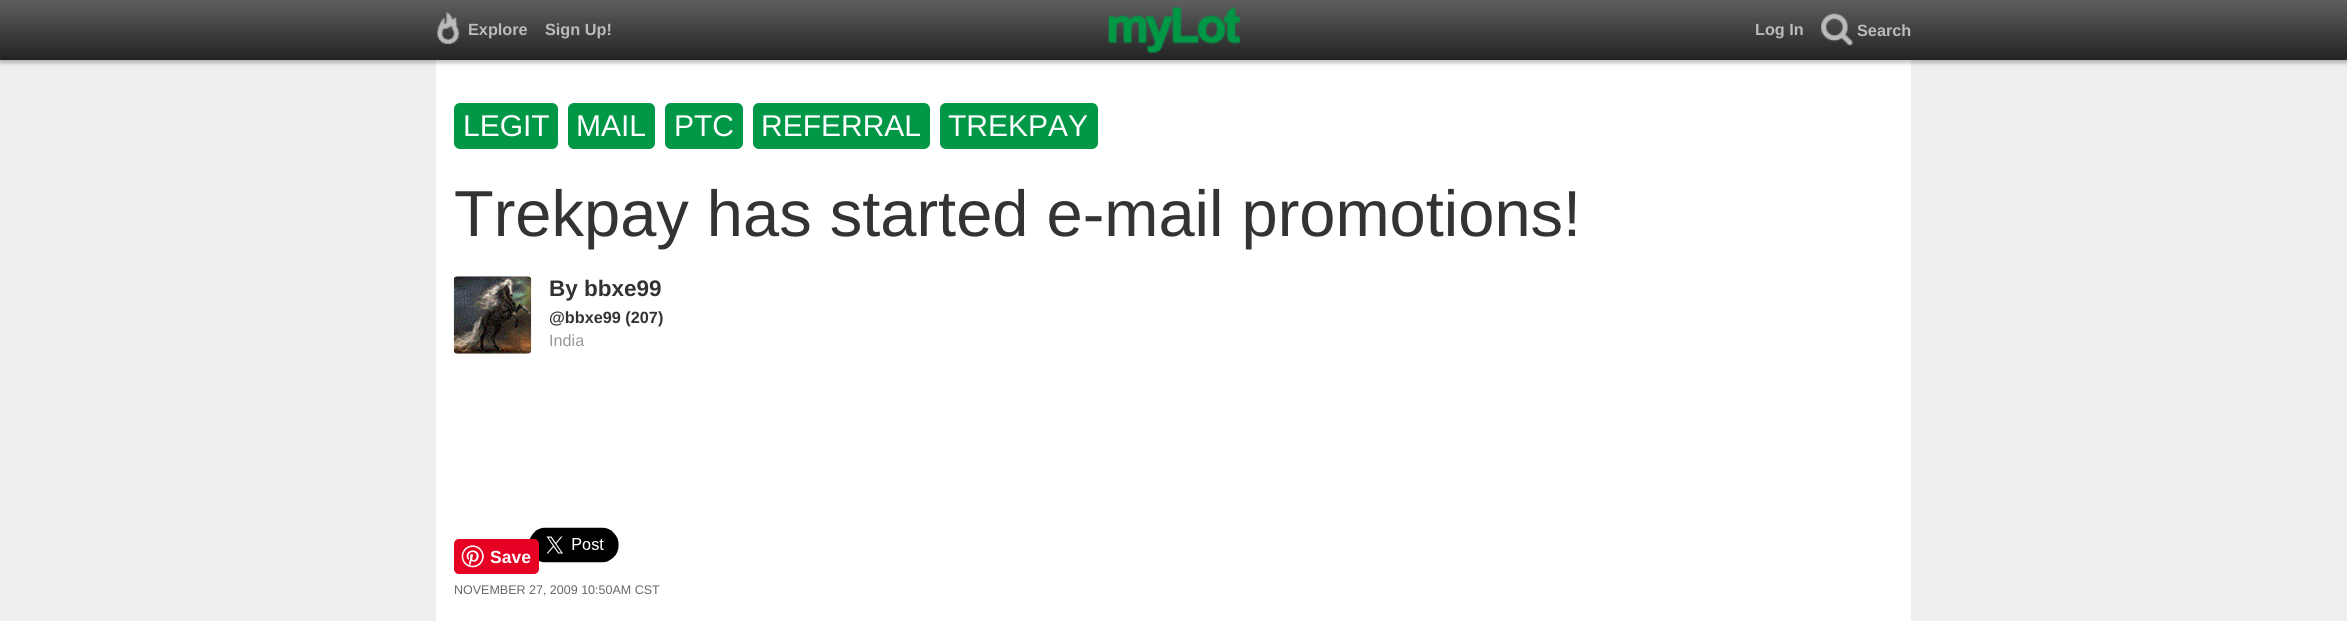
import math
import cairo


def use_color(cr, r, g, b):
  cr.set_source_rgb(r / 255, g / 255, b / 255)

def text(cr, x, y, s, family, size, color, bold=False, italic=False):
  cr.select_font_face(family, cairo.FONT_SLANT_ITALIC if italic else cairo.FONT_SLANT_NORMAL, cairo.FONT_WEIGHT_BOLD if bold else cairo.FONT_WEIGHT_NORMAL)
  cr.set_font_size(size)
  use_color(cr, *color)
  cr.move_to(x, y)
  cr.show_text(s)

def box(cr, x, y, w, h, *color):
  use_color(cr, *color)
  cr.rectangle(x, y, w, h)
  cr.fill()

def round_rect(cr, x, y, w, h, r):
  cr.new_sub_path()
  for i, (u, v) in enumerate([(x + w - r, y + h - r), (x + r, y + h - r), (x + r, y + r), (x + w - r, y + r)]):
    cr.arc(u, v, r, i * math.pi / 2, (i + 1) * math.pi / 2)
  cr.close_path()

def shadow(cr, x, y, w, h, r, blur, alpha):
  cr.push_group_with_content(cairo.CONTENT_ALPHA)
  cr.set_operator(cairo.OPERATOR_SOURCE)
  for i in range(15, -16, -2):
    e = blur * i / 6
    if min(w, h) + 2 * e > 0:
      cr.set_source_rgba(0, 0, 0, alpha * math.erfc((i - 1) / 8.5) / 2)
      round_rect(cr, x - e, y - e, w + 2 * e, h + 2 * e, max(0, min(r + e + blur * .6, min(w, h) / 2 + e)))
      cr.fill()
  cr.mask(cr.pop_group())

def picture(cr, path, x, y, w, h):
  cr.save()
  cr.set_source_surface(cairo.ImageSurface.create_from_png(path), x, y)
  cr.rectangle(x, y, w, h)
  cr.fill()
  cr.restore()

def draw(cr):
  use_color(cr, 238, 238, 238)
  cr.paint()
  box(cr, 436, 60, 1475, 561, 255, 255, 255)
  use_color(cr, 0, 0, 0)
  shadow(cr, 0, 3, 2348, 60, 0, 2, 0.25)
  gradient = cairo.LinearGradient(1174, 0, 1174, 60)
  gradient.add_color_stop_rgba(0, 0.369, 0.369, 0.369, 1)
  gradient.add_color_stop_rgba(1, 0.137, 0.137, 0.137, 1)
  cr.set_source(gradient)
  cr.rectangle(0, 0, 2347, 60)
  cr.fill()
  picture(cr, "img_01.png", 437, 12, 22, 32)
  picture(cr, "img_02.png", 1108, 7, 133, 46)
  picture(cr, "img_03.png", 1821, 13, 32, 33)
  use_color(cr, 0, 151, 70)
  round_rect(cr, 454, 103, 104, 46, 6)
  cr.fill()
  round_rect(cr, 568, 103, 87, 46, 6)
  cr.fill()
  round_rect(cr, 665, 103, 78, 46, 6)
  cr.fill()
  round_rect(cr, 753, 103, 177, 46, 6)
  cr.fill()
  round_rect(cr, 940, 103, 158, 46, 6)
  cr.fill()
  picture(cr, "img_04.png", 453, 276, 79, 78)
  picture(cr, "img_06.png", 529, 527, 90, 36)
  use_color(cr, 230, 0, 35)
  round_rect(cr, 454, 539, 85, 35, 5)
  cr.fill()
  picture(cr, "img_05.png", 461, 545, 23, 23)
  text(cr, 468, 35, "Explore", "Liberation Sans", 16.25, (187, 187, 187), bold=True)
  text(cr, 545, 35, "Sign Up!", "Liberation Sans", 16.25, (187, 187, 187), bold=True)
  text(cr, 1755, 35, "Log In", "Liberation Sans", 16.25, (187, 187, 187), bold=True)
  text(cr, 1857, 36, "Search", "Liberation Sans", 16.25, (187, 187, 187), bold=True)
  text(cr, 463, 136, "LEGIT", "Liberation Sans", 30, (255, 255, 255))
  text(cr, 576, 136, "MAIL", "Liberation Sans", 30, (255, 255, 255))
  text(cr, 674, 136, "PTC", "Liberation Sans", 30, (255, 255, 255))
  text(cr, 761, 136, "REFERRAL", "Liberation Sans", 30, (255, 255, 255))
  text(cr, 948, 136, "TREKPAY", "Liberation Sans", 30, (255, 255, 255))
  text(cr, 454, 236, "Trekpay has started e-mail promotions!", "Liberation Sans", 65, (51, 51, 51))
  text(cr, 549, 296, "By bbxe99", "Liberation Sans", 22.5, (51, 51, 51), bold=True)
  text(cr, 549, 323, "@bbxe99 (207)", "Liberation Sans", 16.25, (51, 51, 51), bold=True)
  text(cr, 549, 346, "India", "Liberation Sans", 16.25, (153, 153, 153))
  text(cr, 490, 563, "Save", "Liberation Sans", 17.5, (255, 255, 255), bold=True)
  text(cr, 454, 594, "NOVEMBER 27, 2009 10:50AM CST", "Liberation Sans", 12.5, (102, 102, 102))


surface = cairo.ImageSurface(cairo.FORMAT_RGB24, 2347, 621)
cr = cairo.Context(surface)
options = cairo.FontOptions()
options.set_hint_metrics(cairo.HINT_METRICS_OFF)
options.set_hint_style(cairo.HINT_STYLE_NONE)
cr.set_font_options(options)
cr.set_miter_limit(4)
draw(cr)
surface.write_to_png("out.png")
